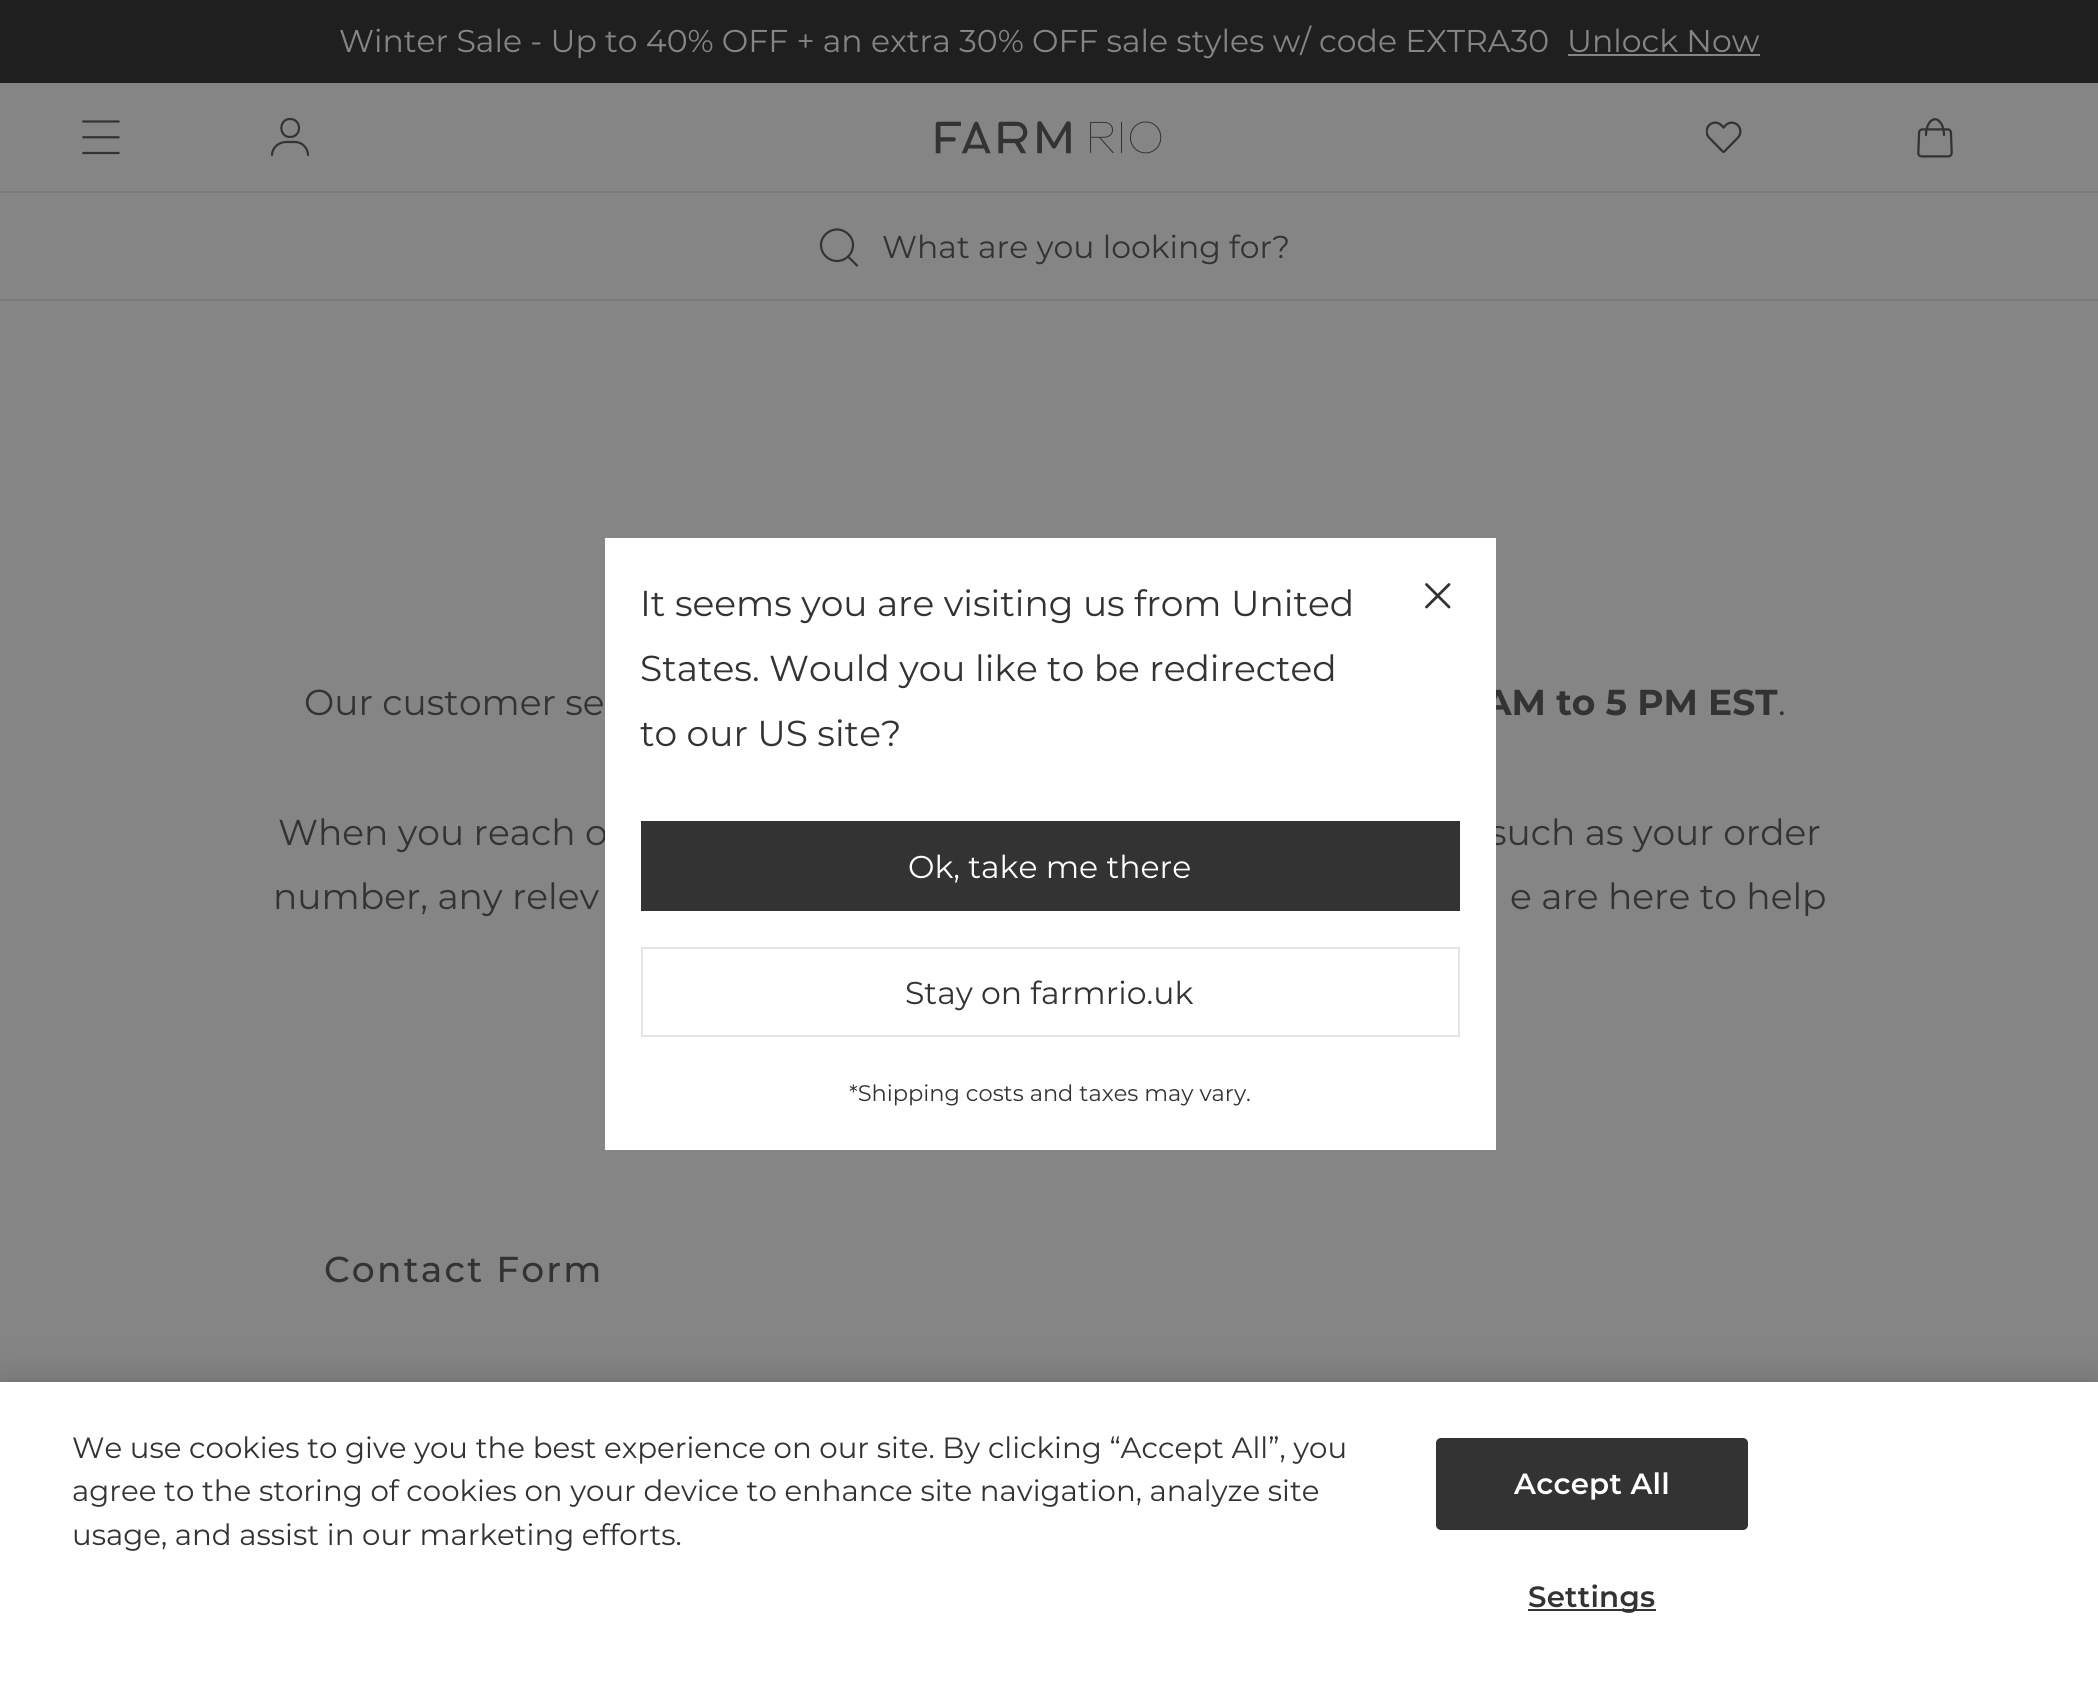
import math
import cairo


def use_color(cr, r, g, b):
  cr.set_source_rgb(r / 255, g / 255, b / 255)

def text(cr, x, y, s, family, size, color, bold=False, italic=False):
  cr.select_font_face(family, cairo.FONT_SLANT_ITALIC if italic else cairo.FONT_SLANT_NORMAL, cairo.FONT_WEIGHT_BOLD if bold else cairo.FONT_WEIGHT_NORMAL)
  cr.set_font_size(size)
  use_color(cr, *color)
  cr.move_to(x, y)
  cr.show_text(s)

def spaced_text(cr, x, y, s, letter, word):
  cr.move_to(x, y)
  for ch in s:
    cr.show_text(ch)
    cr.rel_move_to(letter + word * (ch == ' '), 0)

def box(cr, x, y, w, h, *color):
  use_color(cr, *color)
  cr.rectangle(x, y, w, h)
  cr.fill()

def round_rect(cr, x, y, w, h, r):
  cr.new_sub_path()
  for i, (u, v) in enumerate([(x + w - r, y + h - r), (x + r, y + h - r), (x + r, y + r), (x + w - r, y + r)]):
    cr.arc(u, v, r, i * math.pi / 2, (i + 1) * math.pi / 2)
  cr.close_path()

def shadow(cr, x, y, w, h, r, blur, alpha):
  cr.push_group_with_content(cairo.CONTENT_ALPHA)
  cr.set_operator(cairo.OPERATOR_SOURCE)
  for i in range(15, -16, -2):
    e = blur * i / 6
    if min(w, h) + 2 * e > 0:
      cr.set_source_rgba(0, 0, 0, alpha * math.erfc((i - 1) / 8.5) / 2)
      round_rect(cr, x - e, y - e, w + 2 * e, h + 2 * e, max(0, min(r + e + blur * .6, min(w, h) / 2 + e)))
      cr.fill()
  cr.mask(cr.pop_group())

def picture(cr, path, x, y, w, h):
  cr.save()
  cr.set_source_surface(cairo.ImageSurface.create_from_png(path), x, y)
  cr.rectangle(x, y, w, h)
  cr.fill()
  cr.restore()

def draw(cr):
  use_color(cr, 133, 133, 133)
  cr.paint()
  box(cr, 0, 0, 2098, 81, 31, 31, 31)
  box(cr, 0, 81, 2098, 2, 32, 32, 32)
  box(cr, 1568, 54, 192, 2, 133, 133, 133)
  box(cr, 0, 299, 2098, 2, 122, 122, 122)
  picture(cr, "img_01.png", 82, 120, 38, 35)
  cr.new_path()
  cr.move_to(272, 155)
  cr.curve_to(272, 148, 278.5, 142, 286, 142)
  cr.line_to(295, 142)
  cr.curve_to(302, 142, 308, 148, 308, 155)
  cr.move_to(290, 137)
  cr.curve_to(278.5, 137, 278.5, 119, 290, 119)
  cr.curve_to(302, 119, 302, 137, 290, 137)
  cr.close_path()
  use_color(cr, 51, 51, 51)
  cr.set_line_width(2.2)
  cr.set_line_cap(cairo.LINE_CAP_ROUND)
  cr.stroke()
  picture(cr, "img_02.png", 935, 121, 227, 33)
  picture(cr, "img_03.png", 1706, 121, 36, 32)
  picture(cr, "img_04.png", 1917, 118, 36, 40)
  box(cr, 0, 191, 2098, 2, 122, 122, 122)
  cr.new_path()
  cr.move_to(837, 261)
  cr.curve_to(845.5, 261, 853, 254, 853, 245)
  cr.curve_to(853, 236.5, 845.5, 229.5, 837, 229.5)
  cr.curve_to(828.5, 229.5, 821, 236.5, 821, 245)
  cr.curve_to(821, 254, 828.5, 261, 837, 261)
  cr.close_path()
  cr.move_to(848, 256.5)
  cr.line_to(857, 265.5)
  use_color(cr, 51, 51, 51)
  cr.stroke()
  use_color(cr, 0, 0, 0)
  shadow(cr, 0, 1382, 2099, 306, 0, 20, 0.2)
  box(cr, 0, 1382, 2098, 304, 255, 255, 255)
  use_color(cr, 51, 51, 51)
  round_rect(cr, 1437, 1439, 310, 90, 4)
  cr.fill_preserve()
  cr.set_line_width(2)
  cr.set_line_cap(cairo.LINE_CAP_BUTT)
  cr.stroke()
  box(cr, 1528, 1609, 128, 2, 51, 51, 51)
  text(cr, 339, 52, "Winter Sale - Up to 40% OFF + an extra 30% OFF sale styles w/ code EXTRA30", "Montserrat", 31.5, (133, 133, 133))
  text(cr, 1567, 52, "Unlock Now", "Montserrat", 31.5, (133, 133, 133))
  text(cr, 882, 258, "What are you looking for?", "Montserrat", 31.5, (51, 51, 51))
  text(cr, 304, 715, "Our customer se", "Montserrat", 36, (51, 51, 51))
  text(cr, 1484, 715, "AM to 5 PM EST", "Montserrat", 36, (51, 51, 51), bold=True)
  text(cr, 1778, 715, ".", "Montserrat", 36, (51, 51, 51))
  text(cr, 278, 845, "When you reach o", "Montserrat", 36, (51, 51, 51))
  text(cr, 1489, 845, "such as your order", "Montserrat", 36, (51, 51, 51))
  box(cr, 605, 538, 891, 612, 255, 255, 255)
  cr.new_path()
  cr.move_to(1449, 584.5)
  cr.line_to(1426.5, 607)
  cr.move_to(1449, 607)
  cr.line_to(1426.5, 584.5)
  use_color(cr, 51, 51, 51)
  cr.set_line_width(2.8)
  cr.set_line_cap(cairo.LINE_CAP_ROUND)
  cr.set_line_join(cairo.LINE_JOIN_ROUND)
  cr.stroke()
  text(cr, 849, 1101, "*Shipping costs and taxes may vary.", "Montserrat", 22.5, (51, 51, 51))
  box(cr, 641, 821, 819, 90, 51, 51, 51)
  text(cr, 908, 878, "Ok, take me there", "Montserrat", 31.5, (255, 255, 255))
  cr.rectangle(642, 948, 817, 88)
  use_color(cr, 229, 229, 229)
  cr.set_line_width(2)
  cr.set_line_cap(cairo.LINE_CAP_BUTT)
  cr.set_line_join(cairo.LINE_JOIN_MITER)
  cr.stroke()
  text(cr, 905, 1004, "Stay on farmrio.uk", "Montserrat", 31.5, (51, 51, 51))
  text(cr, 640, 746, "to our US site?", "Montserrat", 36, (51, 51, 51))
  text(cr, 640, 681, "States. Would you like to be redirected", "Montserrat", 36, (51, 51, 51))
  text(cr, 640, 616, "It seems you are visiting us from United", "Montserrat", 36, (51, 51, 51))
  text(cr, 273, 909, "number, any relev", "Montserrat", 36, (51, 51, 51))
  text(cr, 1510, 909, "e are here to help", "Montserrat", 36, (51, 51, 51))
  cr.select_font_face("Montserrat Medium")
  spaced_text(cr, 324, 1282, "Contact Form", 2.2, 0)
  text(cr, 72, 1458, "We use cookies to give you the best experience on our site. By clicking “Accept All”, you", "Montserrat", 29.25, (51, 51, 51))
  text(cr, 72, 1501, "agree to the storing of cookies on your device to enhance site navigation, analyze site", "Montserrat", 29.25, (51, 51, 51))
  text(cr, 72, 1545, "usage, and assist in our marketing efforts.", "Montserrat", 29.25, (51, 51, 51))
  cr.select_font_face("Montserrat SemiBold")
  use_color(cr, 255, 255, 255)
  spaced_text(cr, 1514, 1494, "Accept All", 0.25, 0)
  use_color(cr, 51, 51, 51)
  spaced_text(cr, 1528, 1607, "Settings", 0.25, 0)


surface = cairo.ImageSurface(cairo.FORMAT_RGB24, 2098, 1686)
cr = cairo.Context(surface)
options = cairo.FontOptions()
options.set_hint_metrics(cairo.HINT_METRICS_OFF)
options.set_hint_style(cairo.HINT_STYLE_NONE)
cr.set_font_options(options)
cr.set_miter_limit(4)
draw(cr)
surface.write_to_png("out.png")
